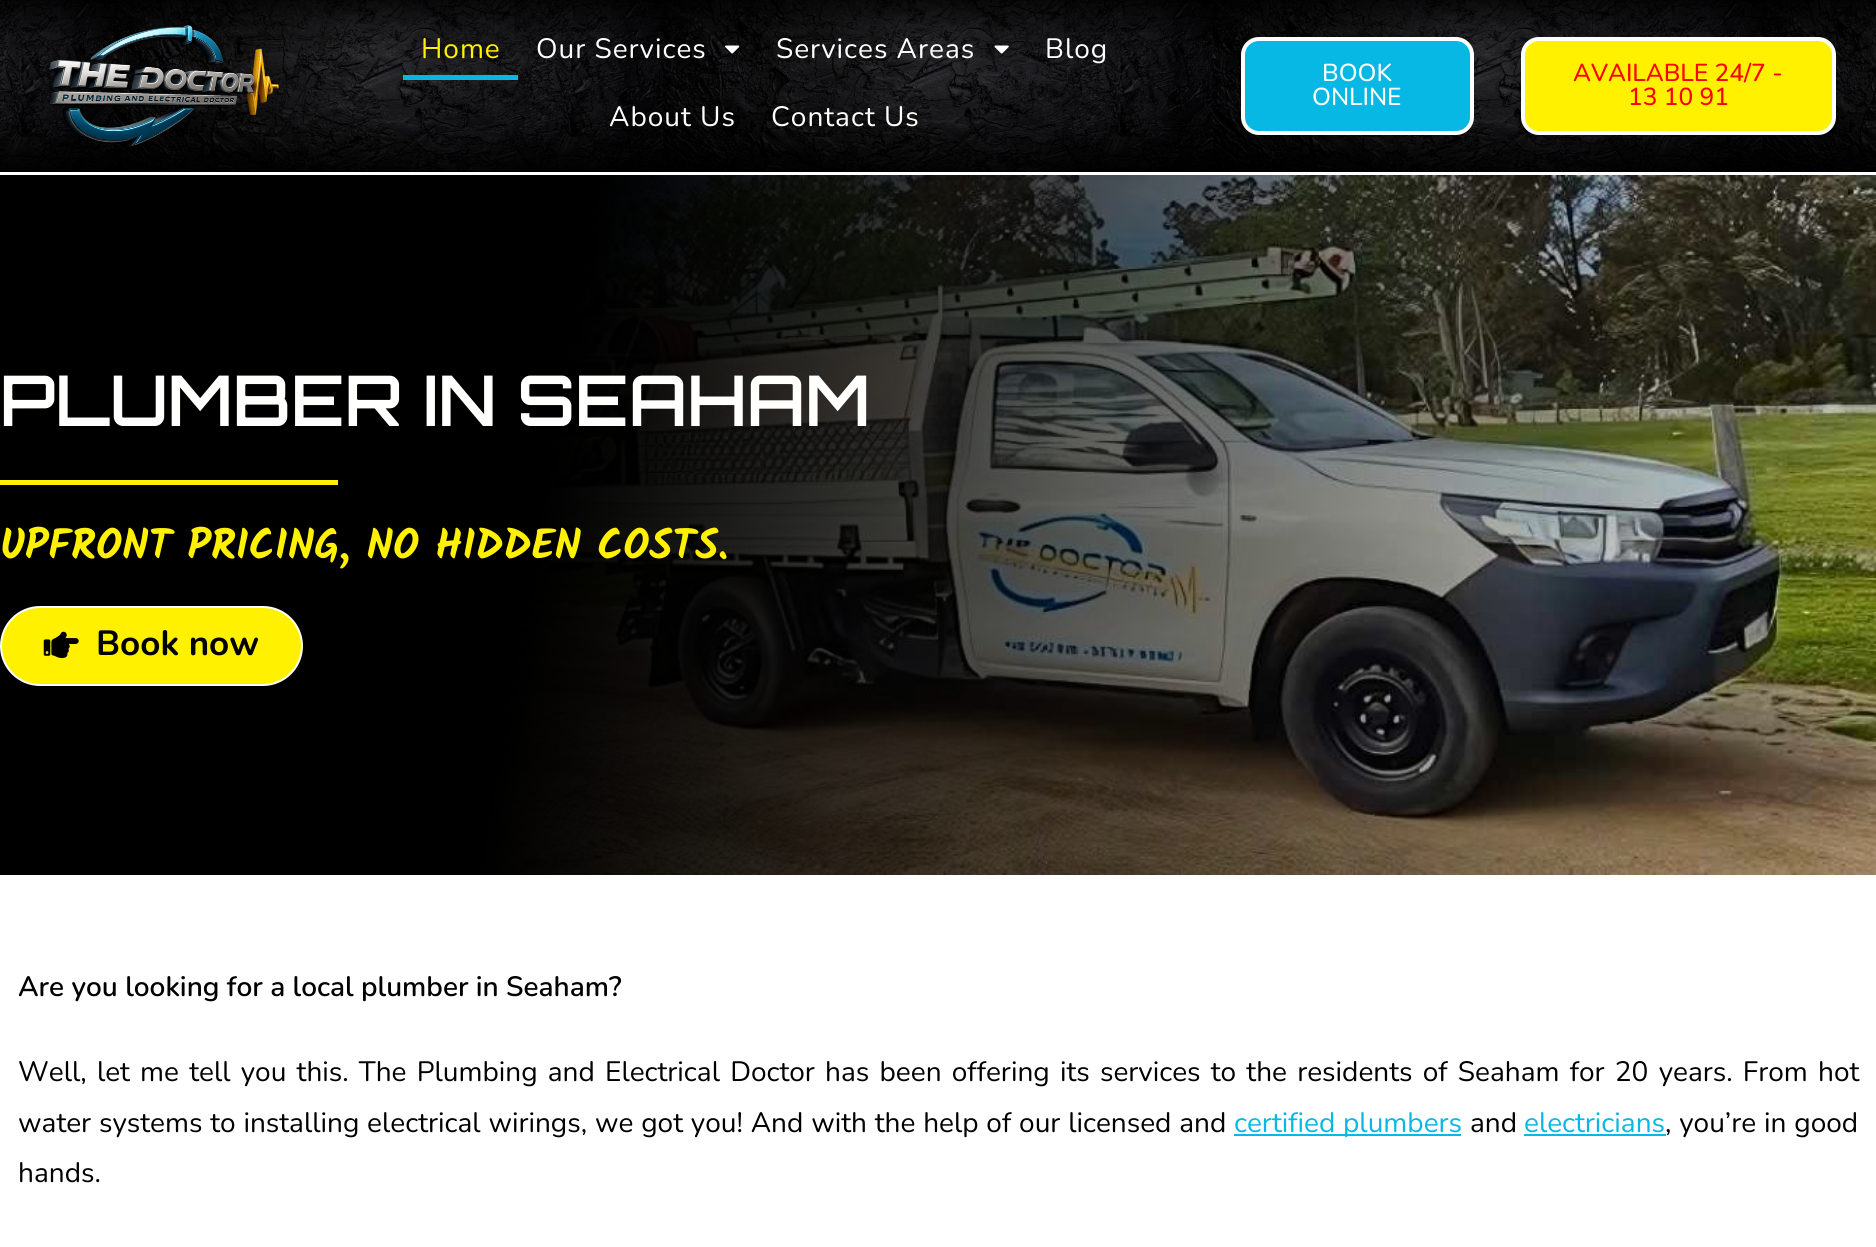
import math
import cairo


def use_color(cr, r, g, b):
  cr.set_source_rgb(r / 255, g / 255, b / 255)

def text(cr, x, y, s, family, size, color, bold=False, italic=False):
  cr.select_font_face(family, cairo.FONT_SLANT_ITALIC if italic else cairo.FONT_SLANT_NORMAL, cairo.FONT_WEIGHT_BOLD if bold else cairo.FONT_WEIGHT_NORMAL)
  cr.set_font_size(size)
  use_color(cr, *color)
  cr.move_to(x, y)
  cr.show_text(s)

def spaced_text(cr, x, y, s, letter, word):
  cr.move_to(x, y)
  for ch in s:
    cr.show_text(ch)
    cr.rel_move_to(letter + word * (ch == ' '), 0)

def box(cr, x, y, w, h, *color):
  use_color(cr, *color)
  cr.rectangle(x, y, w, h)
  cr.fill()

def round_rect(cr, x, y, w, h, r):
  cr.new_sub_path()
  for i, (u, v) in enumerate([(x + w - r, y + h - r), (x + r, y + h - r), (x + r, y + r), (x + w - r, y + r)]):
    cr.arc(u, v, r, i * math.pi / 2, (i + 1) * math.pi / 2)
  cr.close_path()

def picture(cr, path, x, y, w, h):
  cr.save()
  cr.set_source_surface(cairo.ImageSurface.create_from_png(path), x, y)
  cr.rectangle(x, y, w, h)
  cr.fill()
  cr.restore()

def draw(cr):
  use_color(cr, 255, 255, 255)
  cr.paint()
  box(cr, 0, 171, 1876, 1, 0, 0, 0)
  picture(cr, "img_01.png", 0, 0, 1876, 172)
  picture(cr, "img_02.png", 49, 25, 230, 121)
  box(cr, 403, 75, 115, 5, 7, 184, 229)
  picture(cr, "img_03.png", 725, 45, 15, 9)
  picture(cr, "img_04.png", 994, 45, 15, 9)
  round_rect(cr, 1243, 39, 229, 94, 16)
  cr.fill_preserve()
  use_color(cr, 255, 255, 255)
  cr.set_line_width(4)
  cr.stroke()
  use_color(cr, 255, 241, 0)
  round_rect(cr, 1523, 39, 311, 94, 16)
  cr.fill_preserve()
  use_color(cr, 255, 255, 255)
  cr.stroke()
  picture(cr, "img_05.png", 0, 175, 1876, 700)
  box(cr, 0, 480, 338, 5, 255, 241, 0)
  round_rect(cr, 1, 607, 301, 78, 39)
  cr.fill_preserve()
  use_color(cr, 255, 255, 255)
  cr.set_line_width(2)
  cr.stroke()
  picture(cr, "img_06.png", 43, 631, 36, 27)
  box(cr, 1234, 1134, 227, 2, 7, 184, 229)
  box(cr, 1524, 1134, 142, 2, 7, 184, 229)
  cr.select_font_face("Nunito")
  cr.set_font_size(28)
  use_color(cr, 255, 241, 0)
  spaced_text(cr, 421, 58, "Home", 1, 0)
  use_color(cr, 255, 255, 254)
  spaced_text(cr, 536, 58, "Our Services", 1, 0)
  spaced_text(cr, 776, 58, "Services Areas", 1, 0)
  spaced_text(cr, 1045, 58, "Blog", 1, 0)
  spaced_text(cr, 609, 126, "About Us", 1, 0)
  spaced_text(cr, 771, 126, "Contact Us", 1, 0)
  text(cr, 1322, 81, "BOOK", "Nunito Medium", 24.5, (255, 255, 254))
  text(cr, 1312, 105, "ONLINE", "Nunito Medium", 24.5, (255, 255, 254))
  text(cr, 1573, 81, "AVAILABLE 24/7 -", "Nunito Medium", 24.5, (255, 0, 0))
  text(cr, 1628, 105, "13 10 91", "Nunito Medium", 24.5, (255, 0, 0))
  text(cr, 0, 426, "PLUMBER IN SEAHAM", "Orbitron SemiBold", 70, (255, 255, 254))
  text(cr, 0, 559, "UPFRONT PRICING, NO HIDDEN COSTS.", "Kalam", 42, (255, 241, 0), bold=True)
  text(cr, 96, 655, "Book now", "Nunito", 35, (0, 0, 0), bold=True)
  text(cr, 18, 996, "Are you looking for a local plumber in Seaham?", "Nunito SemiBold", 28, (0, 0, 0))
  cr.select_font_face("Nunito")
  spaced_text(cr, 18, 1081, "Well, let me tell you this. The Plumbing and Electrical Doctor has been offering its services to the residents of Seaham for 20 years. From hot", 0, 3)
  spaced_text(cr, 18, 1132, "water systems to installing electrical wirings, we got you! And with the help of our licensed and", 0, 0.6)
  use_color(cr, 7, 184, 229)
  spaced_text(cr, 1234, 1132, "certified plumbers", 0, 0.6)
  text(cr, 1470, 1132, "and", "Nunito", 28, (0, 0, 0))
  text(cr, 1524, 1132, "electricians", "Nunito", 28, (7, 184, 229))
  use_color(cr, 0, 0, 0)
  spaced_text(cr, 1665, 1132, ", you’re in good", 0, 0.6)
  text(cr, 18, 1182, "hands.", "Nunito", 28, (0, 0, 0))


surface = cairo.ImageSurface(cairo.FORMAT_RGB24, 1876, 1247)
cr = cairo.Context(surface)
options = cairo.FontOptions()
options.set_hint_metrics(cairo.HINT_METRICS_OFF)
options.set_hint_style(cairo.HINT_STYLE_NONE)
cr.set_font_options(options)
cr.set_miter_limit(4)
draw(cr)
surface.write_to_png("out.png")
